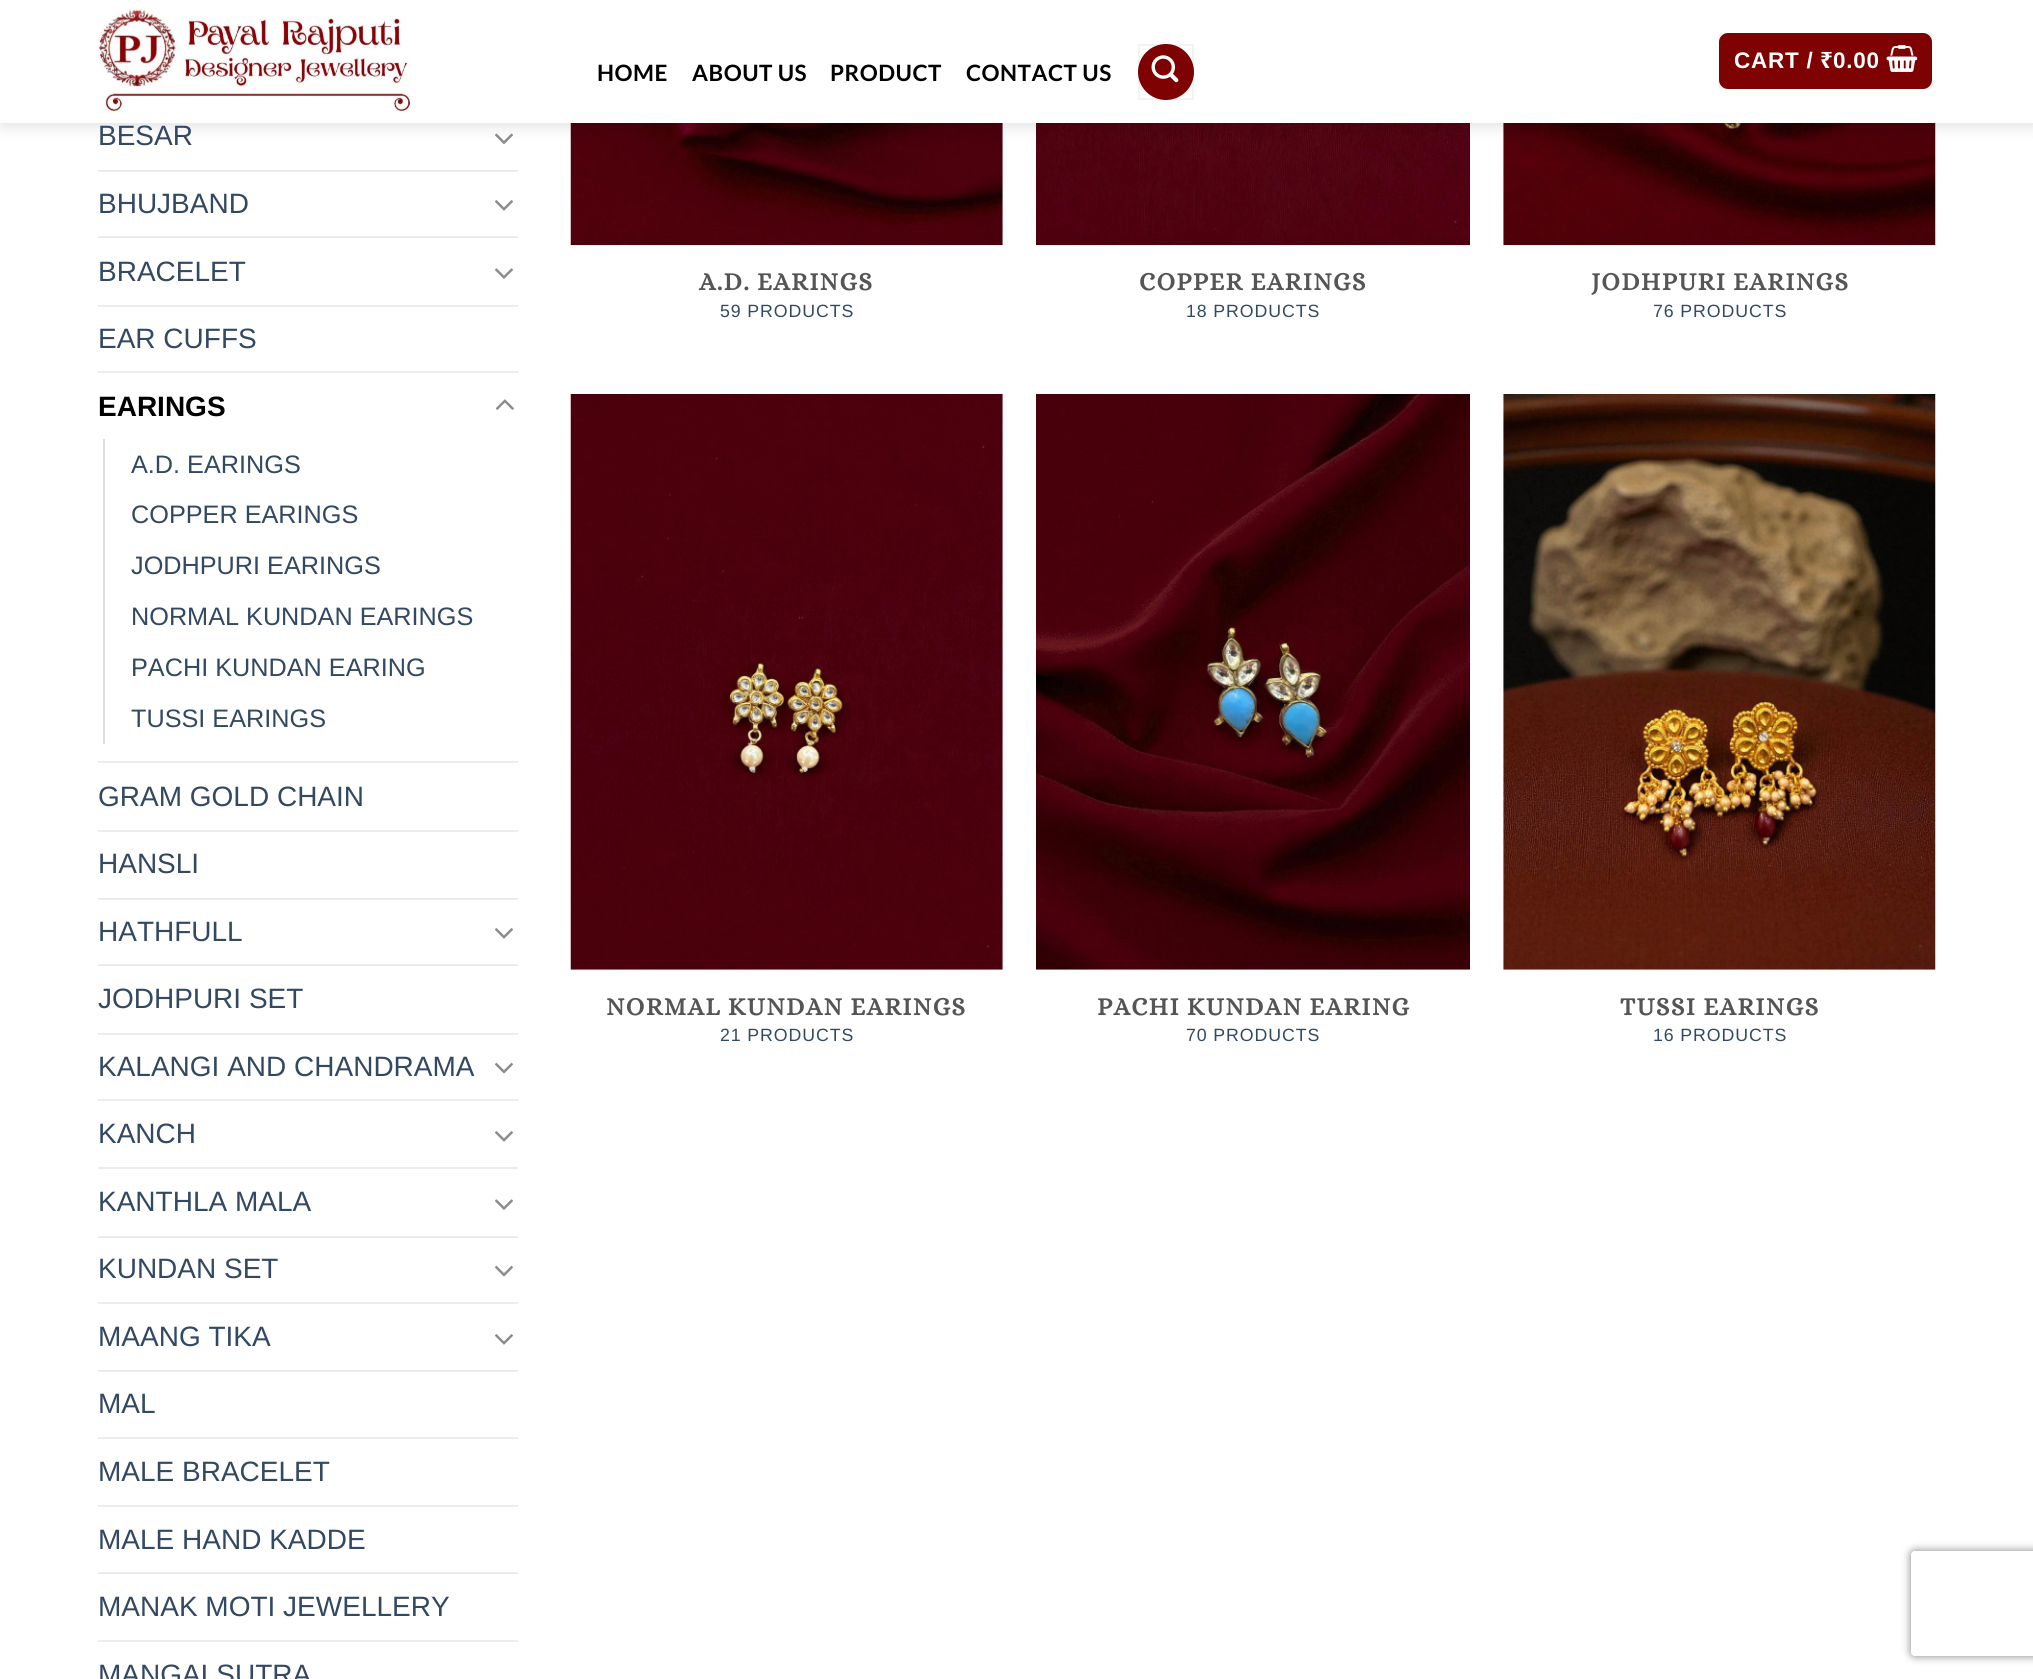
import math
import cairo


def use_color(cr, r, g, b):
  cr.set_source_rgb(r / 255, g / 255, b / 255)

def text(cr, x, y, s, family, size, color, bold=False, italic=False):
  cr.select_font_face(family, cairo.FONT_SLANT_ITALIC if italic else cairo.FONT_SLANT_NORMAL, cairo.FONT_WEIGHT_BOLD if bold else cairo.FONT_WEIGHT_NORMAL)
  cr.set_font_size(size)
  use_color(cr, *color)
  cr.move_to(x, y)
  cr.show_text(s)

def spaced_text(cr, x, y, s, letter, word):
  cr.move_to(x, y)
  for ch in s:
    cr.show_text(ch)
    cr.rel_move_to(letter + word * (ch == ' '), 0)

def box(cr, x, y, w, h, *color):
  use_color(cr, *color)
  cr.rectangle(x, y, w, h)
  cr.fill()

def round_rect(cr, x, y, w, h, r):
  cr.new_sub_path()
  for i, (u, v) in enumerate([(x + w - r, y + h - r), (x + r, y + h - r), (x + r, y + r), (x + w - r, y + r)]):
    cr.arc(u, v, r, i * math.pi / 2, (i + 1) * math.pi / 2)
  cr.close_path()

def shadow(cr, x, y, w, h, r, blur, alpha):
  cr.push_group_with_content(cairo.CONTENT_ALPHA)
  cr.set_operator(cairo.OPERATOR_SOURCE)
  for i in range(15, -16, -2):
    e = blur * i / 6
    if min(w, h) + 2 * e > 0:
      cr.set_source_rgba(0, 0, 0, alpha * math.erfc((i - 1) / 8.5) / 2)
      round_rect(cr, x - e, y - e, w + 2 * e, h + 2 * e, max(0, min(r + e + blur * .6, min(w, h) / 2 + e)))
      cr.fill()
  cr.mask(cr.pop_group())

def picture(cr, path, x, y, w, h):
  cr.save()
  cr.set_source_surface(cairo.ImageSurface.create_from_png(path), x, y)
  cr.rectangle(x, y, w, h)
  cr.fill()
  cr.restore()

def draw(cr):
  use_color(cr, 255, 255, 255)
  cr.paint()
  picture(cr, "img_04.png", 495, 133, 18, 11)
  picture(cr, "img_09.png", 570, 123, 433, 123)
  picture(cr, "img_10.png", 1036, 123, 434, 123)
  picture(cr, "img_11.png", 1503, 123, 433, 123)
  use_color(cr, 0, 0, 0)
  shadow(cr, 2, 2, 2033, 122, 0, 9, 0.15)
  box(cr, 0, 0, 2033, 123, 255, 255, 255)
  picture(cr, "img_01.png", 98, 9, 313, 103)
  use_color(cr, 127, 2, 2)
  round_rect(cr, 1719, 33, 213, 56, 9)
  cr.fill()
  cr.rectangle(1720, 34, 211, 54)
  cr.set_source_rgba(0, 0, 0, 0.05)
  cr.stroke()
  picture(cr, "img_02.png", 1886, 45, 32, 27)
  use_color(cr, 127, 2, 2)
  cr.arc(1166, 72, 28, 0, 2 * math.pi)
  cr.fill()
  cr.rectangle(1139, 45, 54, 54)
  cr.set_source_rgba(0, 0, 0, 0.05)
  cr.stroke()
  picture(cr, "img_03.png", 1151, 55, 28, 28)
  box(cr, 98, 170, 420, 2, 236, 236, 236)
  picture(cr, "img_05.png", 495, 200, 18, 11)
  box(cr, 98, 236, 420, 2, 236, 236, 236)
  picture(cr, "img_06.png", 495, 268, 18, 11)
  box(cr, 98, 305, 420, 2, 236, 236, 236)
  box(cr, 98, 371, 420, 2, 236, 236, 236)
  picture(cr, "img_07.png", 495, 399, 19, 11)
  box(cr, 103, 439, 2, 305, 221, 221, 221)
  box(cr, 98, 761, 420, 2, 236, 236, 236)
  box(cr, 98, 830, 420, 2, 236, 236, 236)
  box(cr, 98, 898, 420, 2, 236, 236, 236)
  picture(cr, "img_05.png", 495, 928, 18, 11)
  box(cr, 98, 964, 420, 2, 236, 236, 236)
  box(cr, 98, 1033, 420, 2, 236, 236, 236)
  picture(cr, "img_08.png", 495, 1062, 18, 12)
  box(cr, 98, 1099, 420, 2, 236, 236, 236)
  picture(cr, "img_05.png", 495, 1131, 18, 11)
  box(cr, 98, 1167, 420, 2, 236, 236, 236)
  picture(cr, "img_06.png", 495, 1199, 18, 11)
  box(cr, 98, 1236, 420, 2, 236, 236, 236)
  picture(cr, "img_08.png", 495, 1265, 18, 12)
  box(cr, 98, 1302, 420, 2, 236, 236, 236)
  picture(cr, "img_05.png", 495, 1334, 18, 11)
  box(cr, 98, 1370, 420, 2, 236, 236, 236)
  box(cr, 98, 1437, 420, 2, 236, 236, 236)
  box(cr, 98, 1505, 420, 2, 236, 236, 236)
  box(cr, 98, 1572, 420, 2, 236, 236, 236)
  box(cr, 98, 1640, 420, 2, 236, 236, 236)
  picture(cr, "img_12.png", 570, 394, 433, 576)
  picture(cr, "img_13.png", 1036, 394, 434, 576)
  picture(cr, "img_14.png", 1503, 394, 433, 576)
  cr.save()
  cr.set_fill_rule(cairo.FILL_RULE_EVEN_ODD)
  cr.new_path()
  cr.move_to(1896, 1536)
  cr.line_to(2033, 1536)
  cr.line_to(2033, 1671)
  cr.line_to(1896, 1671)
  cr.close_path()
  cr.move_to(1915, 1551)
  cr.line_to(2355, 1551)
  cr.curve_to(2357, 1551, 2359, 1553, 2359, 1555)
  cr.line_to(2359, 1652)
  cr.curve_to(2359, 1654, 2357, 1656, 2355, 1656)
  cr.line_to(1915, 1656)
  cr.curve_to(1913, 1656, 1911, 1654, 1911, 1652)
  cr.line_to(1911, 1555)
  cr.curve_to(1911, 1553, 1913, 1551, 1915, 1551)
  cr.close_path()
  cr.clip()
  use_color(cr, 128, 128, 128)
  shadow(cr, 1911, 1551, 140, 105, 4, 4.5, 1)
  cr.restore()
  cr.select_font_face("Liberation Sans", cairo.FONT_SLANT_NORMAL, cairo.FONT_WEIGHT_BOLD)
  cr.set_font_size(22.5)
  use_color(cr, 255, 255, 255)
  spaced_text(cr, 1734, 68, "CART /", 0.75, 0)
  cr.select_font_face("Noto Sans", cairo.FONT_SLANT_NORMAL, cairo.FONT_WEIGHT_BOLD)
  spaced_text(cr, 1820, 68, "₹", 0.75, 0)
  cr.select_font_face("Liberation Sans", cairo.FONT_SLANT_NORMAL, cairo.FONT_WEIGHT_BOLD)
  spaced_text(cr, 1833, 68, "0.00", 0.75, 0)
  cr.select_font_face("Lato", cairo.FONT_SLANT_NORMAL, cairo.FONT_WEIGHT_BOLD)
  use_color(cr, 0, 0, 0)
  spaced_text(cr, 597, 81, "HOME", 0.5, 0)
  spaced_text(cr, 692, 81, "ABOUT US", 0.5, 0)
  spaced_text(cr, 830, 81, "PRODUCT", 0.5, 0)
  spaced_text(cr, 966, 81, "CONTACT US", 0.5, 0)
  text(cr, 98, 145, "BESAR", "Liberation Sans", 28, (51, 72, 98))
  text(cr, 98, 213, "BHUJBAND", "Liberation Sans", 28, (51, 72, 98))
  text(cr, 98, 281, "BRACELET", "Liberation Sans", 28, (51, 72, 98))
  text(cr, 98, 348, "EAR CUFFS", "Liberation Sans", 28, (51, 72, 98))
  text(cr, 98, 416, "EARINGS", "Liberation Sans", 28, (0, 0, 0), bold=True)
  text(cr, 131, 473, "A.D. EARINGS", "Liberation Sans", 25.25, (51, 72, 98))
  text(cr, 131, 523, "COPPER EARINGS", "Liberation Sans", 25.25, (51, 72, 98))
  text(cr, 131, 574, "JODHPURI EARINGS", "Liberation Sans", 25.25, (51, 72, 98))
  text(cr, 131, 625, "NORMAL KUNDAN EARINGS", "Liberation Sans", 25.25, (51, 72, 98))
  text(cr, 131, 676, "PACHI KUNDAN EARING", "Liberation Sans", 25.25, (51, 72, 98))
  text(cr, 131, 727, "TUSSI EARINGS", "Liberation Sans", 25.25, (51, 72, 98))
  text(cr, 98, 806, "GRAM GOLD CHAIN", "Liberation Sans", 28, (51, 72, 98))
  text(cr, 98, 873, "HANSLI", "Liberation Sans", 28, (51, 72, 98))
  text(cr, 98, 941, "HATHFULL", "Liberation Sans", 28, (51, 72, 98))
  text(cr, 98, 1008, "JODHPURI SET", "Liberation Sans", 28, (51, 72, 98))
  text(cr, 98, 1076, "KALANGI AND CHANDRAMA", "Liberation Sans", 28, (51, 72, 98))
  text(cr, 98, 1143, "KANCH", "Liberation Sans", 28, (51, 72, 98))
  text(cr, 98, 1211, "KANTHLA MALA", "Liberation Sans", 28, (51, 72, 98))
  text(cr, 98, 1278, "KUNDAN SET", "Liberation Sans", 28, (51, 72, 98))
  text(cr, 98, 1346, "MAANG TIKA", "Liberation Sans", 28, (51, 72, 98))
  text(cr, 98, 1413, "MAL", "Liberation Sans", 28, (51, 72, 98))
  text(cr, 98, 1481, "MALE BRACELET", "Liberation Sans", 28, (51, 72, 98))
  text(cr, 98, 1549, "MALE HAND KADDE", "Liberation Sans", 28, (51, 72, 98))
  text(cr, 98, 1616, "MANAK MOTI JEWELLERY", "Liberation Sans", 28, (51, 72, 98))
  text(cr, 98, 1684, "MANGALSUTRA", "Liberation Sans", 28, (51, 72, 98))
  cr.select_font_face("Alice", cairo.FONT_SLANT_NORMAL, cairo.FONT_WEIGHT_BOLD)
  cr.set_font_size(25.25)
  use_color(cr, 85, 85, 85)
  spaced_text(cr, 699, 290, "A.D. EARINGS", 1.25, 0)
  cr.select_font_face("Liberation Sans")
  cr.set_font_size(17.75)
  use_color(cr, 51, 72, 98)
  spaced_text(cr, 720, 317, "59 PRODUCTS", 0.9, 0)
  cr.select_font_face("Alice", cairo.FONT_SLANT_NORMAL, cairo.FONT_WEIGHT_BOLD)
  cr.set_font_size(25.25)
  use_color(cr, 85, 85, 85)
  spaced_text(cr, 1139, 290, "COPPER EARINGS", 1.25, 0)
  cr.select_font_face("Liberation Sans")
  cr.set_font_size(17.75)
  use_color(cr, 51, 72, 98)
  spaced_text(cr, 1186, 317, "18 PRODUCTS", 0.9, 0)
  cr.select_font_face("Alice", cairo.FONT_SLANT_NORMAL, cairo.FONT_WEIGHT_BOLD)
  cr.set_font_size(25.25)
  use_color(cr, 85, 85, 85)
  spaced_text(cr, 1591, 290, "JODHPURI EARINGS", 1.25, 0)
  cr.select_font_face("Liberation Sans")
  cr.set_font_size(17.75)
  use_color(cr, 51, 72, 98)
  spaced_text(cr, 1653, 317, "76 PRODUCTS", 0.9, 0)
  cr.select_font_face("Alice", cairo.FONT_SLANT_NORMAL, cairo.FONT_WEIGHT_BOLD)
  cr.set_font_size(25.25)
  use_color(cr, 85, 85, 85)
  spaced_text(cr, 606, 1015, "NORMAL KUNDAN EARINGS", 1.25, 0)
  cr.select_font_face("Liberation Sans")
  cr.set_font_size(17.75)
  use_color(cr, 51, 72, 98)
  spaced_text(cr, 720, 1041, "21 PRODUCTS", 0.9, 0)
  cr.select_font_face("Alice", cairo.FONT_SLANT_NORMAL, cairo.FONT_WEIGHT_BOLD)
  cr.set_font_size(25.25)
  use_color(cr, 85, 85, 85)
  spaced_text(cr, 1097, 1015, "PACHI KUNDAN EARING", 1.25, 0)
  cr.select_font_face("Liberation Sans")
  cr.set_font_size(17.75)
  use_color(cr, 51, 72, 98)
  spaced_text(cr, 1186, 1041, "70 PRODUCTS", 0.9, 0)
  cr.select_font_face("Alice", cairo.FONT_SLANT_NORMAL, cairo.FONT_WEIGHT_BOLD)
  cr.set_font_size(25.25)
  use_color(cr, 85, 85, 85)
  spaced_text(cr, 1620, 1015, "TUSSI EARINGS", 1.25, 0)
  cr.select_font_face("Liberation Sans")
  cr.set_font_size(17.75)
  use_color(cr, 51, 72, 98)
  spaced_text(cr, 1653, 1041, "16 PRODUCTS", 0.9, 0)


surface = cairo.ImageSurface(cairo.FORMAT_RGB24, 2033, 1679)
cr = cairo.Context(surface)
options = cairo.FontOptions()
options.set_hint_metrics(cairo.HINT_METRICS_OFF)
options.set_hint_style(cairo.HINT_STYLE_NONE)
cr.set_font_options(options)
cr.set_miter_limit(4)
draw(cr)
surface.write_to_png("out.png")
